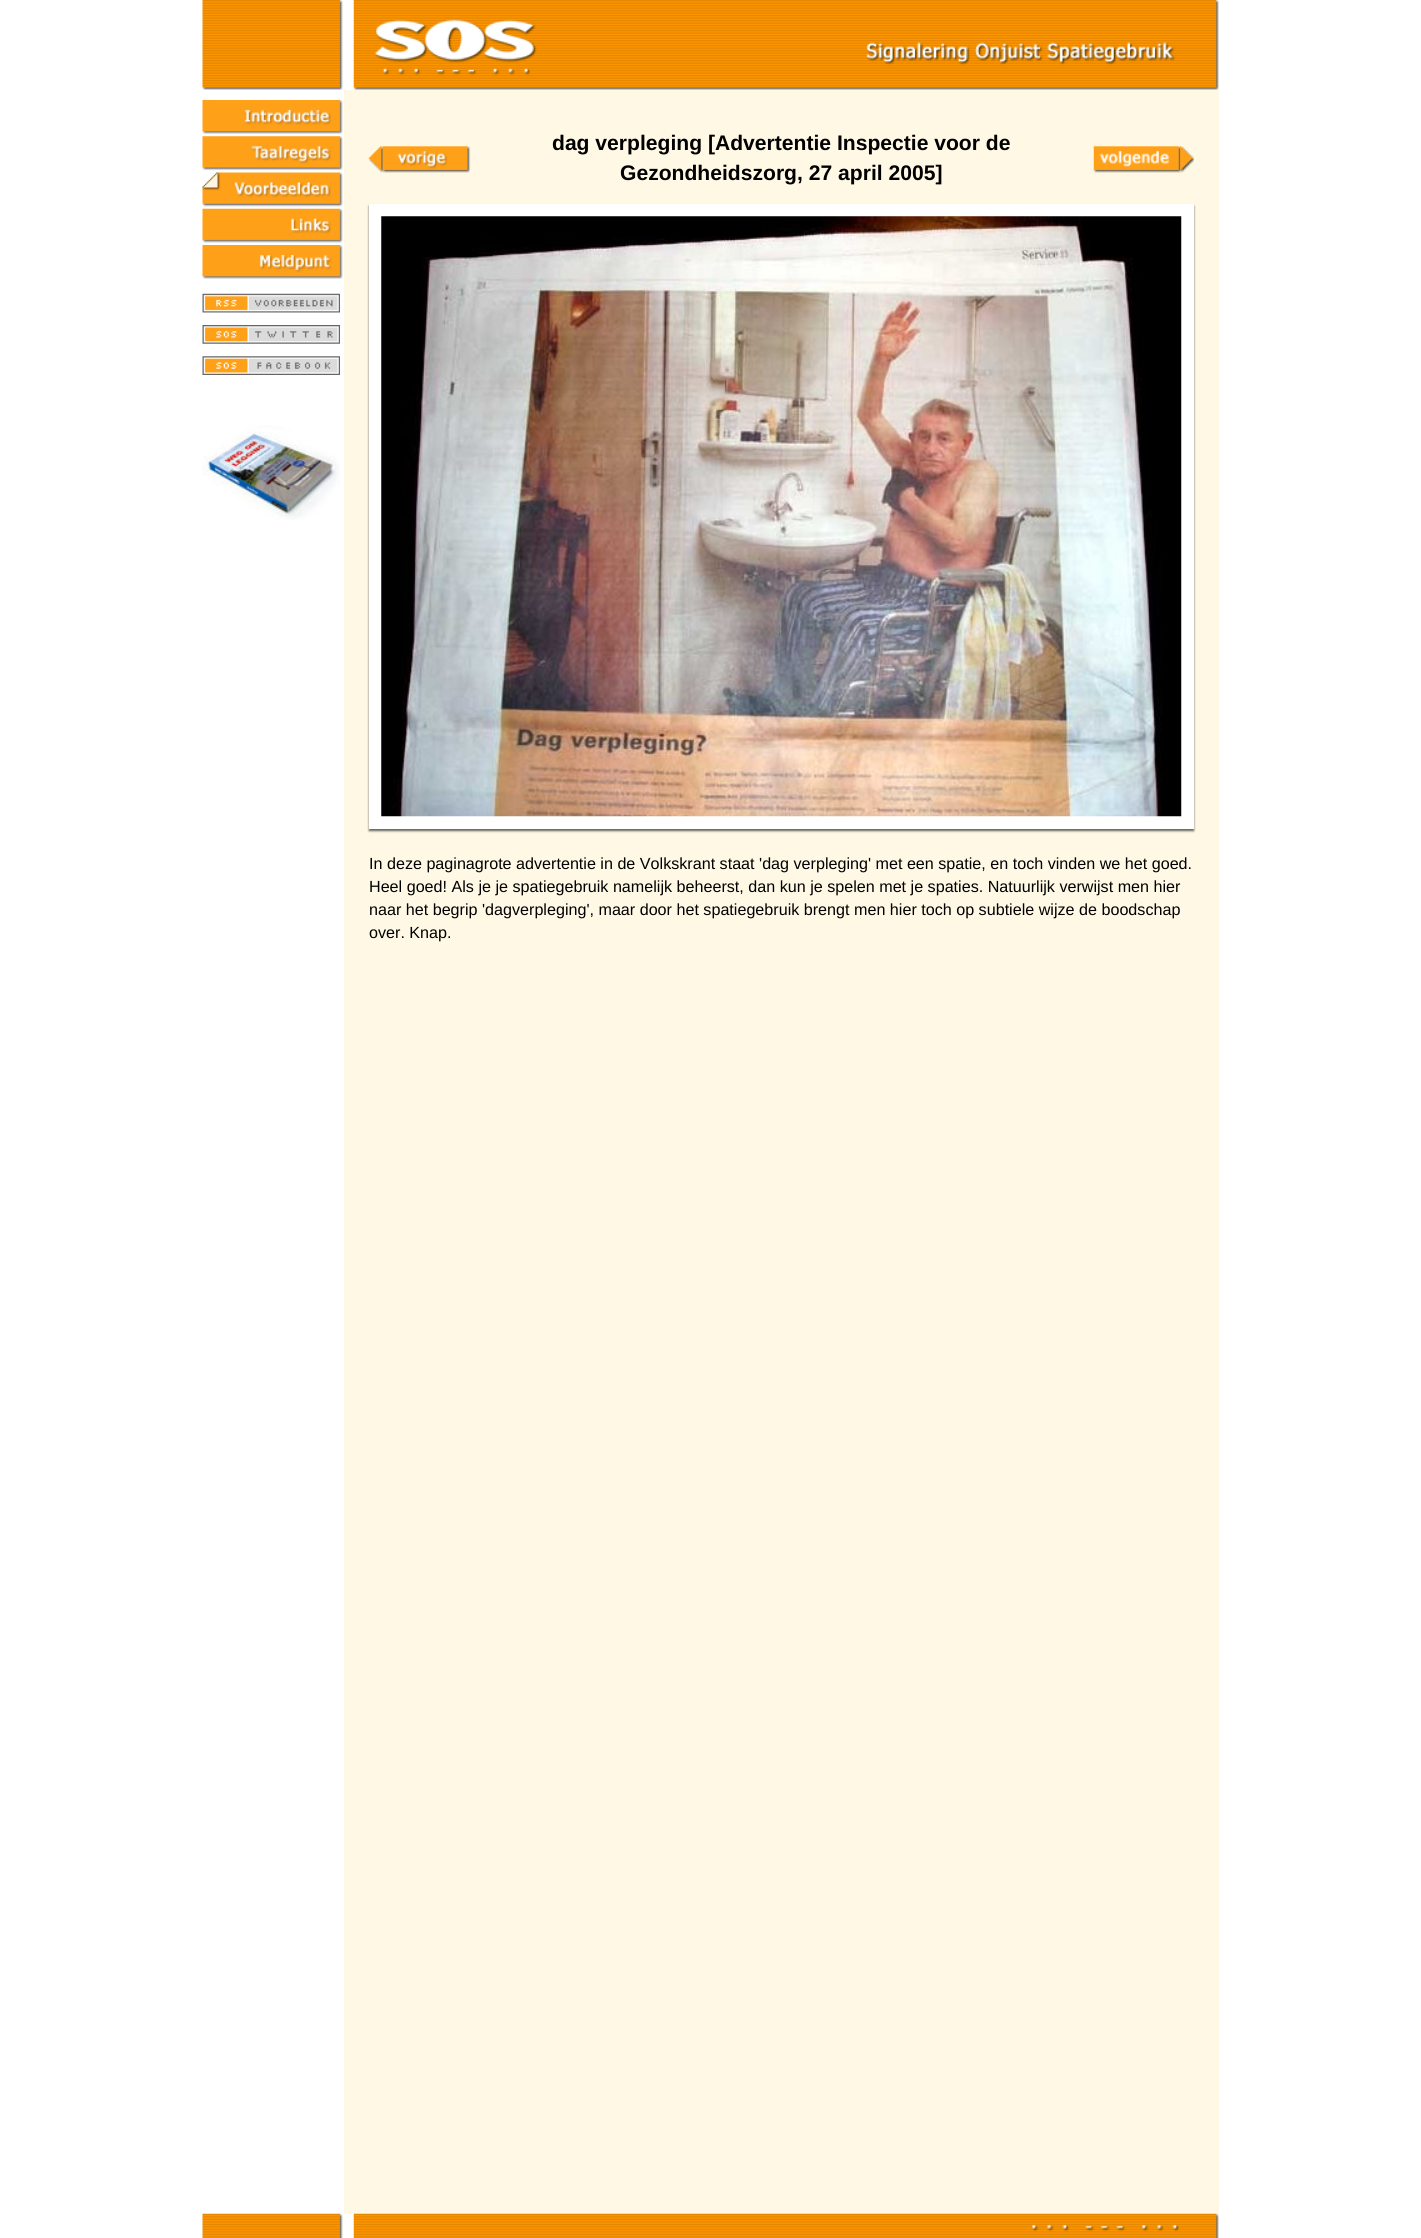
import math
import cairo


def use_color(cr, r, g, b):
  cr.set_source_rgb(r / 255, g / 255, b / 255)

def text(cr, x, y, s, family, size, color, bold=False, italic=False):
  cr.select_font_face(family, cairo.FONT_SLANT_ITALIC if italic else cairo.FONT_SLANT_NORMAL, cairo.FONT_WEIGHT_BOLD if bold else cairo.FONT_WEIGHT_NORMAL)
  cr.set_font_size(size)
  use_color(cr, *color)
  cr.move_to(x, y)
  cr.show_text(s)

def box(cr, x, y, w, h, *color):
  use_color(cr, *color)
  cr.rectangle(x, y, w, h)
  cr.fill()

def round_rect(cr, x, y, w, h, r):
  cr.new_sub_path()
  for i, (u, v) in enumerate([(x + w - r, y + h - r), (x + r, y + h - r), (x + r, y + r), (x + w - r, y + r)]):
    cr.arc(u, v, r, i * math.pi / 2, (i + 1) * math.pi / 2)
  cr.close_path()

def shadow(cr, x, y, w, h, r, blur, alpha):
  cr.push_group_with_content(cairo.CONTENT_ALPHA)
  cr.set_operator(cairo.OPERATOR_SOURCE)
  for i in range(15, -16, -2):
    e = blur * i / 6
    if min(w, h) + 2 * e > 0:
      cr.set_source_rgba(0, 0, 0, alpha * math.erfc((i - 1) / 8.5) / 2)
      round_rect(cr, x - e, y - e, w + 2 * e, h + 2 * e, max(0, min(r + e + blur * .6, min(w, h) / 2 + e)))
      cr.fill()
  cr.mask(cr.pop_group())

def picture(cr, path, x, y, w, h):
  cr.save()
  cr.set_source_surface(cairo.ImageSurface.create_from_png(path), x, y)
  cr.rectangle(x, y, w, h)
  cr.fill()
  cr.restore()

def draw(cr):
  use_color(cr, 255, 255, 255)
  cr.paint()
  picture(cr, "img_01.png", 202, 0, 1017, 90)
  picture(cr, "img_02.png", 202, 100, 141, 34)
  picture(cr, "img_03.png", 202, 136, 141, 35)
  picture(cr, "img_04.png", 202, 172, 141, 35)
  picture(cr, "img_05.png", 202, 208, 141, 35)
  picture(cr, "img_06.png", 202, 245, 141, 34)
  picture(cr, "img_07.png", 202, 293, 138, 20)
  picture(cr, "img_08.png", 202, 325, 138, 19)
  picture(cr, "img_09.png", 202, 356, 138, 19)
  picture(cr, "img_10.png", 202, 425, 138, 95)
  box(cr, 344, 90, 875, 2124, 255, 248, 229)
  picture(cr, "img_11.png", 368, 146, 103, 27)
  picture(cr, "img_12.png", 1093, 146, 101, 27)
  use_color(cr, 50, 50, 50)
  shadow(cr, 369, 206, 825, 625, 0, 1, 0.75)
  cr.rectangle(375.5, 210.5, 812, 612)
  use_color(cr, 255, 255, 255)
  cr.set_line_width(13)
  cr.stroke()
  picture(cr, "img_13.png", 381, 216, 801, 601)
  picture(cr, "img_14.png", 202, 2213, 1017, 25)
  text(cr, 552, 150, "dag verpleging [Advertentie Inspectie voor de", "Liberation Sans", 21.1, (0, 0, 0), bold=True)
  text(cr, 620, 180, "Gezondheidszorg, 27 april 2005]", "Liberation Sans", 21.1, (0, 0, 0), bold=True)
  text(cr, 369, 869, "In deze paginagrote advertentie in de Volkskrant staat 'dag verpleging' met een spatie, en toch vinden we het goed.", "Liberation Sans", 16.13, (0, 0, 0))
  text(cr, 369, 892, "Heel goed! Als je je spatiegebruik namelijk beheerst, dan kun je spelen met je spaties. Natuurlijk verwijst men hier", "Liberation Sans", 16.13, (0, 0, 0))
  text(cr, 369, 915, "naar het begrip 'dagverpleging', maar door het spatiegebruik brengt men hier toch op subtiele wijze de boodschap", "Liberation Sans", 16.13, (0, 0, 0))
  text(cr, 369, 938, "over. Knap.", "Liberation Sans", 16.13, (0, 0, 0))


surface = cairo.ImageSurface(cairo.FORMAT_RGB24, 1421, 2238)
cr = cairo.Context(surface)
options = cairo.FontOptions()
options.set_hint_metrics(cairo.HINT_METRICS_OFF)
options.set_hint_style(cairo.HINT_STYLE_NONE)
cr.set_font_options(options)
cr.set_miter_limit(4)
draw(cr)
surface.write_to_png("out.png")
